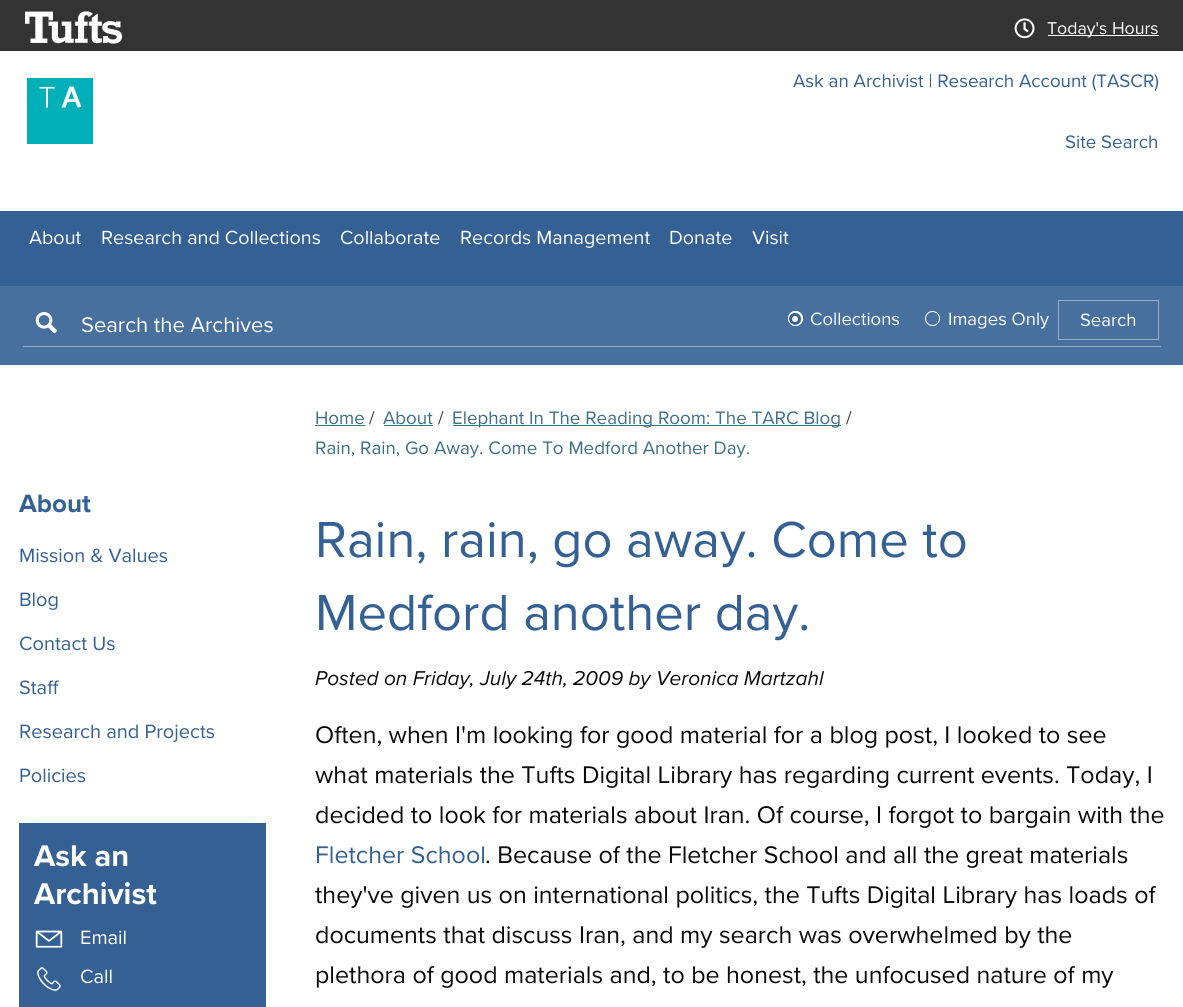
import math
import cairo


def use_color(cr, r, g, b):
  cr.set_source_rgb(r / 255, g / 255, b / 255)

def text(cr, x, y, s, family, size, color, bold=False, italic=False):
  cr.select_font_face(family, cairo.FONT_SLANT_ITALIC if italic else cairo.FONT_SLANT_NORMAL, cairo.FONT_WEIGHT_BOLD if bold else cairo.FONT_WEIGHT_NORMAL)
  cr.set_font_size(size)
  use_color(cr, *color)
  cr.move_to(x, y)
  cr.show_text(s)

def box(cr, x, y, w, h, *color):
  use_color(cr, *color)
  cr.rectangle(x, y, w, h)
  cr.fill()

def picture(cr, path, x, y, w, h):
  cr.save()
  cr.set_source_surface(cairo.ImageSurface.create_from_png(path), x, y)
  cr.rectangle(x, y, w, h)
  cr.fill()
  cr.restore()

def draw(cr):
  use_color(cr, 255, 255, 255)
  cr.paint()
  box(cr, 0, 0, 1183, 51, 51, 51, 51)
  picture(cr, "img_01.png", 25, 11, 97, 33)
  picture(cr, "img_02.png", 1014, 18, 21, 21)
  box(cr, 1048, 35, 111, 1, 254, 254, 254)
  box(cr, 27, 78, 66, 66, 0, 176, 185)
  use_color(cr, 255, 255, 255)
  cr.new_path()
  cr.move_to(55, 88.5)
  cr.line_to(54.5, 87)
  cr.line_to(39.5, 87)
  cr.line_to(39.5, 88.5)
  cr.line_to(46, 88.5)
  cr.line_to(46, 107.5)
  cr.line_to(48, 107.5)
  cr.line_to(48, 88.5)
  cr.close_path()
  cr.move_to(71.5, 91)
  cr.line_to(74, 99)
  cr.line_to(68.5, 99)
  cr.close_path()
  cr.move_to(61.5, 107.5)
  cr.line_to(65.5, 107.5)
  cr.line_to(67.5, 102)
  cr.line_to(75.5, 102)
  cr.line_to(77.5, 107.5)
  cr.line_to(81.5, 107)
  cr.line_to(73.5, 86.5)
  cr.line_to(69.5, 86.5)
  cr.close_path()
  cr.fill()
  box(cr, 0, 211, 1183, 75, 52, 96, 148)
  box(cr, 0, 286, 1183, 79, 71, 112, 158)
  picture(cr, "img_03.png", 35, 312, 22, 22)
  use_color(cr, 254, 254, 254)
  cr.arc(795.5, 318.5, 7.5, 0, 2 * math.pi)
  cr.fill()
  cr.arc(795, 319, 4.5, 0, 2 * math.pi)
  use_color(cr, 52, 96, 148)
  cr.set_line_width(3)
  cr.stroke()
  cr.arc(795.5, 318.5, 7, 0, 2 * math.pi)
  use_color(cr, 254, 254, 254)
  cr.set_line_width(1)
  cr.stroke()
  cr.arc(932.5, 318.5, 7, 0, 2 * math.pi)
  cr.stroke()
  cr.rectangle(1058.5, 300.5, 100, 39)
  use_color(cr, 153, 175, 201)
  cr.stroke()
  box(cr, 23, 346, 1138, 1, 153, 175, 201)
  box(cr, 19, 823, 247, 184, 52, 96, 147)
  picture(cr, "img_04.png", 35, 930, 28, 18)
  picture(cr, "img_05.png", 37, 967, 24, 24)
  box(cr, 315, 425, 50, 1, 60, 112, 134)
  box(cr, 384, 425, 49, 1, 60, 112, 134)
  box(cr, 453, 425, 388, 1, 60, 112, 134)
  text(cr, 1047, 34, "Today's Hours", "Proxima Nova", 17.75, (254, 254, 254))
  text(cr, 793, 87, "Ask an Archivist | Research Account (TASCR)", "Proxima Nova", 18.75, (52, 96, 147))
  text(cr, 29, 244, "About", "Proxima Nova", 19.75, (254, 254, 254))
  text(cr, 101, 244, "Research and Collections", "Proxima Nova", 19.75, (254, 254, 254))
  text(cr, 340, 244, "Collaborate", "Proxima Nova", 19.75, (254, 254, 254))
  text(cr, 460, 244, "Records Management", "Proxima Nova", 19.75, (254, 254, 254))
  text(cr, 669, 244, "Donate", "Proxima Nova", 19.75, (254, 254, 254))
  text(cr, 752, 244, "Visit", "Proxima Nova", 19.75, (254, 254, 254))
  text(cr, 1065, 148, "Site Search", "Proxima Nova", 18.75, (52, 96, 147))
  text(cr, 81, 332, "Search the Archives", "Proxima Nova", 22, (254, 254, 254))
  text(cr, 810, 325, "Collections", "Proxima Nova", 18.5, (254, 254, 254))
  text(cr, 948, 325, "Images Only", "Proxima Nova", 18.5, (254, 254, 254))
  text(cr, 1080, 326, "Search", "Proxima Nova", 18.5, (254, 254, 254))
  text(cr, 19, 512, "About", "Proxima Nova", 26, (52, 96, 147), bold=True)
  text(cr, 19, 562, "Mission & Values", "Proxima Nova", 20, (52, 96, 147))
  text(cr, 19, 606, "Blog", "Proxima Nova", 20, (52, 96, 147))
  text(cr, 19, 650, "Contact Us", "Proxima Nova", 20, (52, 96, 147))
  text(cr, 19, 694, "Staff", "Proxima Nova", 20, (52, 96, 147))
  text(cr, 19, 738, "Research and Projects", "Proxima Nova", 20, (52, 96, 147))
  text(cr, 19, 782, "Policies", "Proxima Nova", 20, (52, 96, 147))
  text(cr, 34, 866, "Ask an", "Proxima Nova", 31, (254, 254, 254), bold=True)
  text(cr, 34, 904, "Archivist", "Proxima Nova", 31, (254, 254, 254), bold=True)
  text(cr, 80, 944, "Email", "Proxima Nova", 20, (254, 254, 254))
  text(cr, 80, 983, "Call", "Proxima Nova", 20, (254, 254, 254))
  text(cr, 315, 424, "Home", "Proxima Nova", 18.75, (60, 112, 134))
  text(cr, 369, 424, "/", "Proxima Nova", 18.75, (51, 51, 51))
  text(cr, 383, 424, "About", "Proxima Nova", 18.75, (60, 112, 134))
  text(cr, 438, 424, "/", "Proxima Nova", 18.75, (51, 51, 51))
  text(cr, 452, 424, "Elephant In The Reading Room: The TARC Blog", "Proxima Nova", 18.75, (60, 112, 134))
  text(cr, 846, 424, "/", "Proxima Nova", 18.75, (51, 51, 51))
  text(cr, 315, 454, "Rain, Rain, Go Away. Come To Medford Another Day.", "Proxima Nova", 18.75, (60, 112, 134))
  text(cr, 315, 557, "Rain, rain, go away. Come to", "Proxima Nova", 52.5, (52, 96, 147))
  text(cr, 315, 630, "Medford another day.", "Proxima Nova", 52.5, (52, 96, 147))
  text(cr, 315, 685, "Posted on Friday, July 24th, 2009 by Veronica Martzahl", "Proxima Nova", 20.8, (10, 10, 10), italic=True)
  text(cr, 315, 743, "Often, when I'm looking for good material for a blog post, I looked to see", "Proxima Nova", 25, (10, 10, 10))
  text(cr, 315, 783, "what materials the Tufts Digital Library has regarding current events. Today, I", "Proxima Nova", 25, (10, 10, 10))
  text(cr, 315, 823, "decided to look for materials about Iran. Of course, I forgot to bargain with the", "Proxima Nova", 25, (10, 10, 10))
  text(cr, 315, 863, "Fletcher School", "Proxima Nova", 25, (52, 96, 147))
  text(cr, 485, 863, ". Because of the Fletcher School and all the great materials", "Proxima Nova", 25, (10, 10, 10))
  text(cr, 315, 903, "they've given us on international politics, the Tufts Digital Library has loads of", "Proxima Nova", 25, (10, 10, 10))
  text(cr, 315, 943, "documents that discuss Iran, and my search was overwhelmed by the", "Proxima Nova", 25, (10, 10, 10))
  text(cr, 315, 983, "plethora of good materials and, to be honest, the unfocused nature of my", "Proxima Nova", 25, (10, 10, 10))


surface = cairo.ImageSurface(cairo.FORMAT_RGB24, 1183, 1007)
cr = cairo.Context(surface)
options = cairo.FontOptions()
options.set_hint_metrics(cairo.HINT_METRICS_OFF)
options.set_hint_style(cairo.HINT_STYLE_NONE)
cr.set_font_options(options)
cr.set_miter_limit(4)
draw(cr)
surface.write_to_png("out.png")
